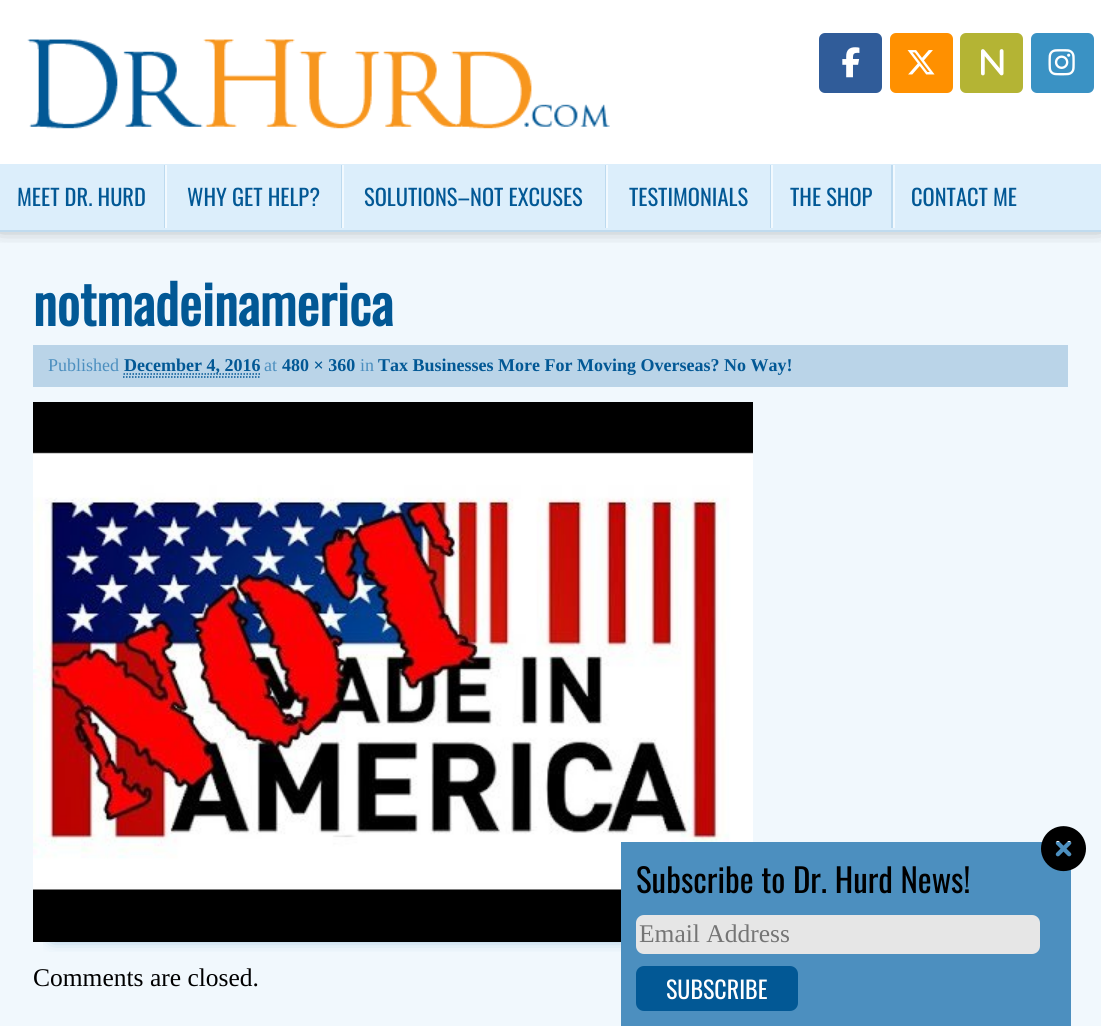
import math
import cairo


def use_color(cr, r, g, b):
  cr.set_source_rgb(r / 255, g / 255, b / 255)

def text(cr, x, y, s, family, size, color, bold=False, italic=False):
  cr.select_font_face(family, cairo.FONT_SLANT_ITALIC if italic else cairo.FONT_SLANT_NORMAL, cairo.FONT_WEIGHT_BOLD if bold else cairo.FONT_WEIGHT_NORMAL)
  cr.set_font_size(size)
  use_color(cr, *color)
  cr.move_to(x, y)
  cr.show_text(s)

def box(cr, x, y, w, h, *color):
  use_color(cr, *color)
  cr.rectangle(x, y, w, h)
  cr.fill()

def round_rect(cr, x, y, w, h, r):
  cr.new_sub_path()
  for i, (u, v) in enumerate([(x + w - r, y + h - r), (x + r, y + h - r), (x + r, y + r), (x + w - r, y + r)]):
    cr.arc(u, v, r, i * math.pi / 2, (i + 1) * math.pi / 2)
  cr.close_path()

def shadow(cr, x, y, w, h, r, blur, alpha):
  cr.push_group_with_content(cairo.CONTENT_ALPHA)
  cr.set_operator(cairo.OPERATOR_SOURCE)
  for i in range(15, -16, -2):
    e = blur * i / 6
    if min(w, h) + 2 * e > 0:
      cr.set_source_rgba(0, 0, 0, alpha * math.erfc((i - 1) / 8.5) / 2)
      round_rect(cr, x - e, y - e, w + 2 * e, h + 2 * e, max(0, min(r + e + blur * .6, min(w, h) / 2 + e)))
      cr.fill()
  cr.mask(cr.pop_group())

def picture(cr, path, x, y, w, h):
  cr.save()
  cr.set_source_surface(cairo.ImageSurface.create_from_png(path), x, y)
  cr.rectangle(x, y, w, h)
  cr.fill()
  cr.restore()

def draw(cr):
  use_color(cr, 255, 255, 255)
  cr.paint()
  box(cr, 0, 232, 1101, 794, 241, 248, 253)
  cr.save()
  cr.rectangle(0, 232, 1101, 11)
  cr.clip()
  use_color(cr, 0, 0, 0)
  shadow(cr, 0, -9, 1101, 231, 0, 11, 0.7)
  cr.restore()
  box(cr, 0, 230, 1101, 2, 192, 219, 239)
  picture(cr, "img_01.png", 27, 39, 583, 90)
  use_color(cr, 48, 92, 153)
  round_rect(cr, 819, 33, 63, 60, 6)
  cr.fill()
  picture(cr, "img_02.png", 842, 47, 18, 31)
  use_color(cr, 255, 144, 0)
  round_rect(cr, 890, 33, 63, 60, 6)
  cr.fill()
  picture(cr, "img_03.png", 907, 50, 28, 25)
  use_color(cr, 180, 180, 52)
  round_rect(cr, 960, 33, 63, 60, 6)
  cr.fill()
  picture(cr, "img_04.png", 981, 49, 23, 27)
  use_color(cr, 58, 146, 196)
  round_rect(cr, 1031, 33, 63, 60, 6)
  cr.fill()
  picture(cr, "img_05.png", 1048, 49, 27, 27)
  box(cr, 0, 164, 1101, 66, 220, 238, 251)
  box(cr, 164, 165, 1, 63, 189, 218, 239)
  box(cr, 341, 165, 1, 63, 189, 218, 239)
  box(cr, 165, 165, 2, 63, 242, 249, 254)
  box(cr, 605, 165, 1, 63, 189, 218, 239)
  box(cr, 342, 165, 2, 63, 242, 249, 254)
  box(cr, 770, 165, 1, 63, 189, 218, 239)
  box(cr, 606, 165, 2, 63, 242, 249, 254)
  box(cr, 891, 165, 2, 63, 189, 218, 239)
  box(cr, 771, 165, 2, 63, 242, 249, 254)
  box(cr, 893, 165, 2, 63, 242, 249, 254)
  cr.save()
  cr.rectangle(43, 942, 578, 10)
  cr.clip()
  use_color(cr, 76, 143, 191)
  shadow(cr, 53, 264, 996, 672, 0, 8, 1)
  cr.restore()
  box(cr, 33, 345, 1035, 42, 186, 212, 232)
  cr.new_path()
  cr.move_to(123, 377)
  cr.line_to(259.5, 377)
  use_color(cr, 2, 88, 149)
  cr.set_line_width(1.5)
  cr.set_dash([1.5, 1.5])
  cr.stroke()
  cr.new_path()
  cr.move_to(123.5, 374)
  cr.line_to(260, 374)
  cr.stroke()
  picture(cr, "img_06.png", 33, 402, 720, 540)
  box(cr, 621, 842, 450, 184, 76, 143, 191)
  picture(cr, "img_07.png", 1041, 826, 45, 46)
  use_color(cr, 230, 230, 230)
  round_rect(cr, 636, 915, 404, 39, 8)
  cr.fill()
  use_color(cr, 2, 88, 149)
  round_rect(cr, 636, 966, 162, 45, 8)
  cr.fill()
  text(cr, 17, 206, "MEET DR. HURD", "Oswald", 22.5, (2, 88, 149))
  text(cr, 187, 206, "WHY GET HELP?", "Oswald", 22.5, (2, 88, 149))
  text(cr, 364, 206, "SOLUTIONS–NOT EXCUSES", "Oswald", 22.5, (2, 88, 149))
  text(cr, 629, 206, "TESTIMONIALS", "Oswald", 22.5, (2, 88, 149))
  text(cr, 790, 206, "THE SHOP", "Oswald", 22.5, (2, 88, 149))
  text(cr, 911, 206, "CONTACT ME", "Oswald", 22.5, (2, 88, 149))
  text(cr, 33, 326, "notmadeinamerica", "Oswald", 54, (2, 88, 149), bold=True)
  text(cr, 48, 371, "Published", "Liberation Serif", 18, (76, 143, 191))
  text(cr, 124, 371, "December 4, 2016", "Liberation Serif", 18, (2, 88, 149), bold=True)
  text(cr, 264, 371, "at", "Liberation Serif", 18, (76, 143, 191))
  text(cr, 282, 371, "480 × 360", "Liberation Serif", 18, (2, 88, 149), bold=True)
  text(cr, 360, 371, "in", "Liberation Serif", 18, (76, 143, 191))
  text(cr, 378, 371, "Tax Businesses More For Moving Overseas? No Way!", "Liberation Serif", 18, (2, 88, 149), bold=True)
  text(cr, 33, 986, "Comments are closed.", "Liberation Serif", 25.5, (0, 0, 0))
  text(cr, 636, 893, "Subscribe to Dr. Hurd News!", "Oswald", 33, (0, 0, 0))
  text(cr, 639, 942, "Email Address", "Liberation Serif", 25.5, (117, 117, 117))
  text(cr, 666, 999, "SUBSCRIBE", "Oswald", 24, (255, 255, 255))


surface = cairo.ImageSurface(cairo.FORMAT_RGB24, 1101, 1026)
cr = cairo.Context(surface)
options = cairo.FontOptions()
options.set_hint_metrics(cairo.HINT_METRICS_OFF)
options.set_hint_style(cairo.HINT_STYLE_NONE)
cr.set_font_options(options)
cr.set_miter_limit(4)
draw(cr)
surface.write_to_png("out.png")
